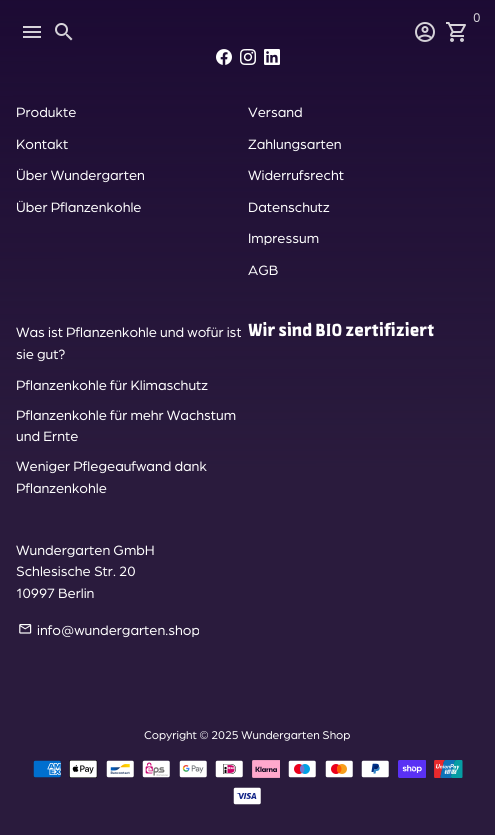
import math
import cairo


def use_color(cr, r, g, b):
  cr.set_source_rgb(r / 255, g / 255, b / 255)

def text(cr, x, y, s, family, size, color, bold=False, italic=False):
  cr.select_font_face(family, cairo.FONT_SLANT_ITALIC if italic else cairo.FONT_SLANT_NORMAL, cairo.FONT_WEIGHT_BOLD if bold else cairo.FONT_WEIGHT_NORMAL)
  cr.set_font_size(size)
  use_color(cr, *color)
  cr.move_to(x, y)
  cr.show_text(s)

def picture(cr, path, x, y, w, h):
  cr.save()
  cr.set_source_surface(cairo.ImageSurface.create_from_png(path), x, y)
  cr.rectangle(x, y, w, h)
  cr.fill()
  cr.restore()

def draw(cr):
  use_color(cr, 26, 8, 50)
  cr.paint()
  picture(cr, "img_01.png", 446, 22, 20, 20)
  picture(cr, "img_02.png", 415, 22, 20, 20)
  picture(cr, "img_03.png", 23, 26, 18, 12)
  picture(cr, "img_04.png", 55, 23, 18, 18)
  text(cr, 473, 22, "0", "Poppins", 12, (255, 255, 255))
  gradient = cairo.LinearGradient(247, -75, 248, 835)
  gradient.add_color_stop_rgba(0, 0.165, 0.106, 0.239, 0)
  gradient.add_color_stop_rgba(0.6, 0.165, 0.106, 0.239, 1)
  cr.set_source(gradient)
  cr.rectangle(0, 0, 495, 835)
  cr.fill()
  picture(cr, "img_05.png", 216, 49, 16, 16)
  picture(cr, "img_06.png", 240, 49, 16, 16)
  picture(cr, "img_07.png", 264, 49, 16, 16)
  text(cr, 16, 117, "Produkte", "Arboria", 14.4, (255, 255, 255))
  text(cr, 16, 149, "Kontakt", "Arboria", 14.4, (255, 255, 255))
  text(cr, 16, 180, "Über Wundergarten", "Arboria", 14.4, (255, 255, 255))
  text(cr, 16, 212, "Über Pflanzenkohle", "Arboria", 14.4, (255, 255, 255))
  text(cr, 248, 117, "Versand", "Arboria", 14.4, (255, 255, 255))
  text(cr, 248, 149, "Zahlungsarten", "Arboria", 14.4, (255, 255, 255))
  text(cr, 248, 180, "Widerrufsrecht", "Arboria", 14.4, (255, 255, 255))
  text(cr, 248, 212, "Datenschutz", "Arboria", 14.4, (255, 255, 255))
  text(cr, 248, 243, "Impressum", "Arboria", 14.4, (255, 255, 255))
  text(cr, 248, 275, "AGB", "Arboria", 14.4, (255, 255, 255))
  text(cr, 16, 337, "Was ist Pflanzenkohle und wofür ist", "Arboria", 14.4, (255, 255, 255))
  text(cr, 16, 359, "sie gut?", "Arboria", 14.4, (255, 255, 255))
  text(cr, 16, 390, "Pflanzenkohle für Klimaschutz", "Arboria", 14.4, (255, 255, 255))
  text(cr, 16, 420, "Pflanzenkohle für mehr Wachstum", "Arboria", 14.4, (255, 255, 255))
  text(cr, 16, 441, "und Ernte", "Arboria", 14.4, (255, 255, 255))
  text(cr, 16, 471, "Weniger Pflegeaufwand dank", "Arboria", 14.4, (255, 255, 255))
  text(cr, 16, 493, "Pflanzenkohle", "Arboria", 14.4, (255, 255, 255))
  text(cr, 248, 336, "Wir sind BIO zertifiziert", "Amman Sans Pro", 18.75, (255, 255, 255), bold=True)
  text(cr, 16, 555, "Wundergarten GmbH", "Arboria", 14.4, (255, 255, 255))
  text(cr, 16, 576, "Schlesische Str. 20", "Arboria", 14.4, (255, 255, 255))
  text(cr, 16, 598, "10997 Berlin", "Arboria", 14.4, (255, 255, 255))
  picture(cr, "img_08.png", 19, 624, 13, 10)
  text(cr, 37, 635, "info@wundergarten.shop", "Arboria", 14.4, (255, 255, 255))
  text(cr, 144, 739, "Copyright © 2025 Wundergarten Shop", "Arboria", 12, (255, 255, 255))
  picture(cr, "img_09.png", 33, 760, 28, 18)
  picture(cr, "img_10.png", 69, 760, 29, 18)
  picture(cr, "img_11.png", 106, 760, 28, 18)
  picture(cr, "img_12.png", 142, 760, 28, 18)
  picture(cr, "img_13.png", 179, 760, 28, 18)
  picture(cr, "img_14.png", 215, 760, 28, 18)
  picture(cr, "img_15.png", 252, 760, 28, 18)
  picture(cr, "img_16.png", 288, 760, 28, 18)
  picture(cr, "img_17.png", 325, 760, 28, 18)
  picture(cr, "img_18.png", 361, 760, 28, 18)
  picture(cr, "img_19.png", 398, 760, 28, 18)
  picture(cr, "img_20.png", 434, 760, 29, 18)
  picture(cr, "img_21.png", 233, 787, 28, 18)


surface = cairo.ImageSurface(cairo.FORMAT_RGB24, 495, 835)
cr = cairo.Context(surface)
options = cairo.FontOptions()
options.set_hint_metrics(cairo.HINT_METRICS_OFF)
options.set_hint_style(cairo.HINT_STYLE_NONE)
cr.set_font_options(options)
cr.set_miter_limit(4)
draw(cr)
surface.write_to_png("out.png")
